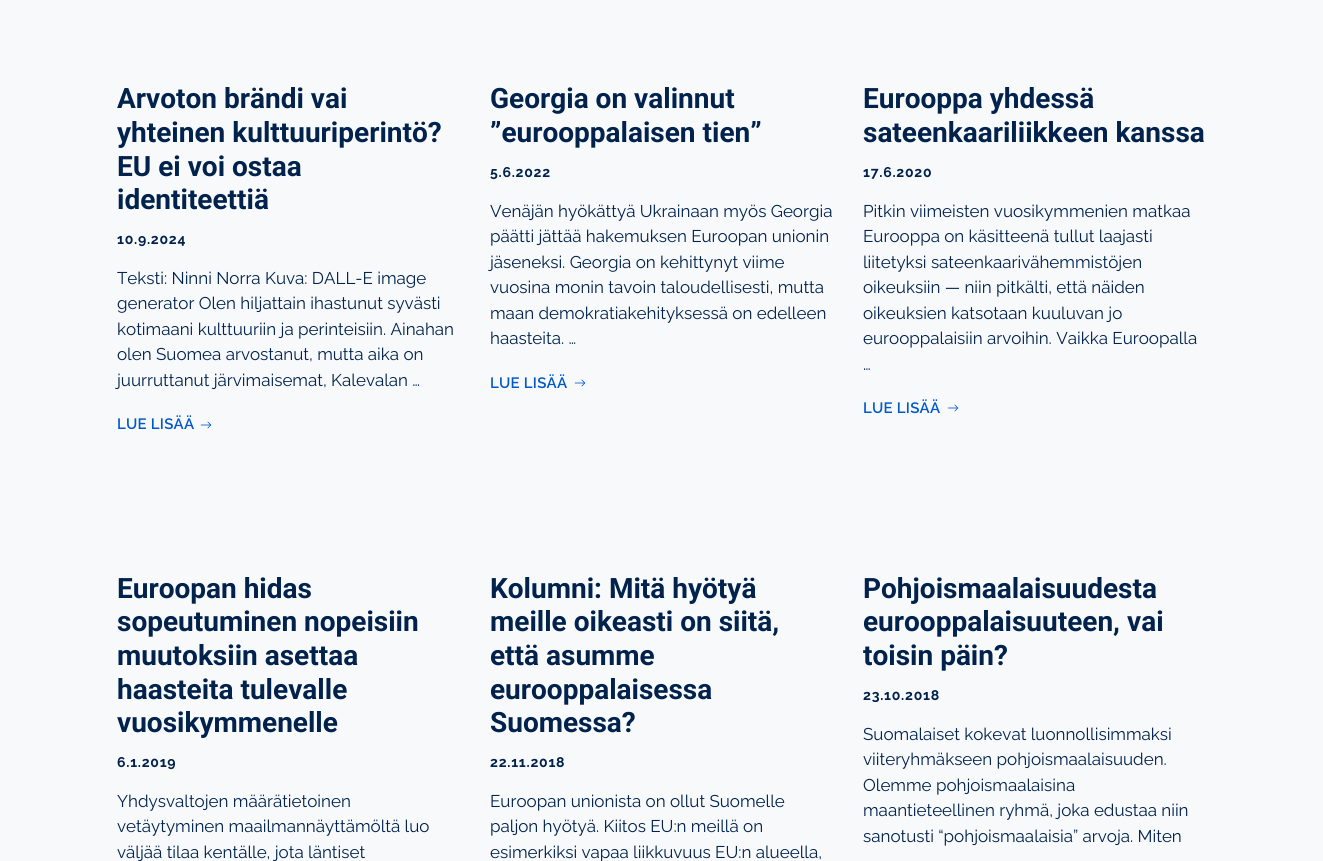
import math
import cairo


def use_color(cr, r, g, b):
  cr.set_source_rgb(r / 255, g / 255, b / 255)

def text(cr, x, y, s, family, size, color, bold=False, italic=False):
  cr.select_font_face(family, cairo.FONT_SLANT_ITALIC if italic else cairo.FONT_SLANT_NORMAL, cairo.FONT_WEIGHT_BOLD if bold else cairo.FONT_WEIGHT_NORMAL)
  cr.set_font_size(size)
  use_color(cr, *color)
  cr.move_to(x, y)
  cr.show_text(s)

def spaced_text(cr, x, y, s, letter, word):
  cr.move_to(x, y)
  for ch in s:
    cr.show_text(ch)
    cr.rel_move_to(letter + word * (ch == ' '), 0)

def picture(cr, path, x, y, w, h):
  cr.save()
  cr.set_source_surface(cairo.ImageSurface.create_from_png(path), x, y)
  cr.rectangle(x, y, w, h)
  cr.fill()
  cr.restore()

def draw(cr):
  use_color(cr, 248, 249, 250)
  cr.paint()
  picture(cr, "img_01.png", 200, 421, 12, 8)
  picture(cr, "img_01.png", 574, 379, 12, 8)
  picture(cr, "img_01.png", 947, 404, 12, 8)
  text(cr, 117, 108, "Arvoton brändi vai", "Roboto", 28, (0, 34, 77), bold=True)
  text(cr, 117, 142, "yhteinen kulttuuriperintö?", "Roboto", 28, (0, 34, 77), bold=True)
  text(cr, 117, 176, "EU ei voi ostaa", "Roboto", 28, (0, 34, 77), bold=True)
  text(cr, 117, 209, "identiteettiä", "Roboto", 28, (0, 34, 77), bold=True)
  cr.select_font_face("Raleway", cairo.FONT_SLANT_NORMAL, cairo.FONT_WEIGHT_BOLD)
  cr.set_font_size(14)
  spaced_text(cr, 117, 244, "10.9.2024", 0.75, 0)
  text(cr, 117, 284, "Teksti: Ninni Norra Kuva: DALL-E image", "Raleway", 17, (0, 34, 77))
  text(cr, 117, 309, "generator Olen hiljattain ihastunut syvästi", "Raleway", 17, (0, 34, 77))
  text(cr, 117, 335, "kotimaani kulttuuriin ja perinteisiin. Ainahan", "Raleway", 17, (0, 34, 77))
  text(cr, 117, 360, "olen Suomea arvostanut, mutta aika on", "Raleway", 17, (0, 34, 77))
  text(cr, 117, 386, "juurruttanut järvimaisemat, Kalevalan …", "Raleway", 17, (0, 34, 77))
  cr.select_font_face("Raleway SemiBold")
  cr.set_font_size(15)
  use_color(cr, 0, 88, 204)
  spaced_text(cr, 117, 429, "LUE LISÄÄ", 0.25, 0)
  text(cr, 490, 108, "Georgia on valinnut", "Roboto", 28, (0, 34, 77), bold=True)
  text(cr, 490, 142, "”eurooppalaisen tien”", "Roboto", 28, (0, 34, 77), bold=True)
  cr.select_font_face("Raleway", cairo.FONT_SLANT_NORMAL, cairo.FONT_WEIGHT_BOLD)
  cr.set_font_size(14)
  spaced_text(cr, 490, 177, "5.6.2022", 0.75, 0)
  text(cr, 490, 217, "Venäjän hyökättyä Ukrainaan myös Georgia", "Raleway", 17, (0, 34, 77))
  text(cr, 490, 242, "päätti jättää hakemuksen Euroopan unionin", "Raleway", 17, (0, 34, 77))
  text(cr, 490, 268, "jäseneksi. Georgia on kehittynyt viime", "Raleway", 17, (0, 34, 77))
  text(cr, 490, 293, "vuosina monin tavoin taloudellisesti, mutta", "Raleway", 17, (0, 34, 77))
  text(cr, 490, 319, "maan demokratiakehityksessä on edelleen", "Raleway", 17, (0, 34, 77))
  text(cr, 490, 344, "haasteita. …", "Raleway", 17, (0, 34, 77))
  cr.select_font_face("Raleway SemiBold")
  cr.set_font_size(15)
  use_color(cr, 0, 88, 204)
  spaced_text(cr, 490, 388, "LUE LISÄÄ", 0.25, 0)
  text(cr, 863, 108, "Eurooppa yhdessä", "Roboto", 28, (0, 34, 77), bold=True)
  text(cr, 863, 142, "sateenkaariliikkeen kanssa", "Roboto", 28, (0, 34, 77), bold=True)
  cr.select_font_face("Raleway", cairo.FONT_SLANT_NORMAL, cairo.FONT_WEIGHT_BOLD)
  cr.set_font_size(14)
  spaced_text(cr, 863, 177, "17.6.2020", 0.75, 0)
  text(cr, 863, 217, "Pitkin viimeisten vuosikymmenien matkaa", "Raleway", 17, (0, 34, 77))
  text(cr, 863, 242, "Eurooppa on käsitteenä tullut laajasti", "Raleway", 17, (0, 34, 77))
  text(cr, 863, 268, "liitetyksi sateenkaarivähemmistöjen", "Raleway", 17, (0, 34, 77))
  text(cr, 863, 293, "oikeuksiin — niin pitkälti, että näiden", "Raleway", 17, (0, 34, 77))
  text(cr, 863, 319, "oikeuksien katsotaan kuuluvan jo", "Raleway", 17, (0, 34, 77))
  text(cr, 863, 344, "eurooppalaisiin arvoihin. Vaikka Euroopalla", "Raleway", 17, (0, 34, 77))
  text(cr, 863, 370, "…", "Raleway", 17, (0, 34, 77))
  cr.select_font_face("Raleway SemiBold")
  cr.set_font_size(15)
  use_color(cr, 0, 88, 204)
  spaced_text(cr, 863, 413, "LUE LISÄÄ", 0.25, 0)
  text(cr, 117, 598, "Euroopan hidas", "Roboto", 28, (0, 34, 77), bold=True)
  text(cr, 117, 631, "sopeutuminen nopeisiin", "Roboto", 28, (0, 34, 77), bold=True)
  text(cr, 117, 665, "muutoksiin asettaa", "Roboto", 28, (0, 34, 77), bold=True)
  text(cr, 117, 699, "haasteita tulevalle", "Roboto", 28, (0, 34, 77), bold=True)
  text(cr, 117, 732, "vuosikymmenelle", "Roboto", 28, (0, 34, 77), bold=True)
  cr.select_font_face("Raleway", cairo.FONT_SLANT_NORMAL, cairo.FONT_WEIGHT_BOLD)
  cr.set_font_size(14)
  spaced_text(cr, 117, 767, "6.1.2019", 0.75, 0)
  text(cr, 117, 807, "Yhdysvaltojen määrätietoinen", "Raleway", 17, (0, 34, 77))
  text(cr, 117, 832, "vetäytyminen maailmannäyttämöltä luo", "Raleway", 17, (0, 34, 77))
  text(cr, 117, 858, "väljää tilaa kentälle, jota läntiset", "Raleway", 17, (0, 34, 77))
  text(cr, 490, 598, "Kolumni: Mitä hyötyä", "Roboto", 28, (0, 34, 77), bold=True)
  text(cr, 490, 631, "meille oikeasti on siitä,", "Roboto", 28, (0, 34, 77), bold=True)
  text(cr, 490, 665, "että asumme", "Roboto", 28, (0, 34, 77), bold=True)
  text(cr, 490, 699, "eurooppalaisessa", "Roboto", 28, (0, 34, 77), bold=True)
  text(cr, 490, 732, "Suomessa?", "Roboto", 28, (0, 34, 77), bold=True)
  cr.select_font_face("Raleway", cairo.FONT_SLANT_NORMAL, cairo.FONT_WEIGHT_BOLD)
  cr.set_font_size(14)
  spaced_text(cr, 490, 767, "22.11.2018", 0.75, 0)
  text(cr, 490, 807, "Euroopan unionista on ollut Suomelle", "Raleway", 17, (0, 34, 77))
  text(cr, 490, 832, "paljon hyötyä. Kiitos EU:n meillä on", "Raleway", 17, (0, 34, 77))
  text(cr, 490, 858, "esimerkiksi vapaa liikkuvuus EU:n alueella,", "Raleway", 17, (0, 34, 77))
  text(cr, 863, 598, "Pohjoismaalaisuudesta", "Roboto", 28, (0, 34, 77), bold=True)
  text(cr, 863, 631, "eurooppalaisuuteen, vai", "Roboto", 28, (0, 34, 77), bold=True)
  text(cr, 863, 665, "toisin päin?", "Roboto", 28, (0, 34, 77), bold=True)
  cr.select_font_face("Raleway", cairo.FONT_SLANT_NORMAL, cairo.FONT_WEIGHT_BOLD)
  cr.set_font_size(14)
  spaced_text(cr, 863, 700, "23.10.2018", 0.75, 0)
  text(cr, 863, 740, "Suomalaiset kokevat luonnollisimmaksi", "Raleway", 17, (0, 34, 77))
  text(cr, 863, 765, "viiteryhmäkseen pohjoismaalaisuuden.", "Raleway", 17, (0, 34, 77))
  text(cr, 863, 791, "Olemme pohjoismaalaisina", "Raleway", 17, (0, 34, 77))
  text(cr, 863, 816, "maantieteellinen ryhmä, joka edustaa niin", "Raleway", 17, (0, 34, 77))
  text(cr, 863, 842, "sanotusti “pohjoismaalaisia” arvoja. Miten", "Raleway", 17, (0, 34, 77))


surface = cairo.ImageSurface(cairo.FORMAT_RGB24, 1323, 861)
cr = cairo.Context(surface)
options = cairo.FontOptions()
options.set_hint_metrics(cairo.HINT_METRICS_OFF)
options.set_hint_style(cairo.HINT_STYLE_NONE)
cr.set_font_options(options)
cr.set_miter_limit(4)
draw(cr)
surface.write_to_png("out.png")
